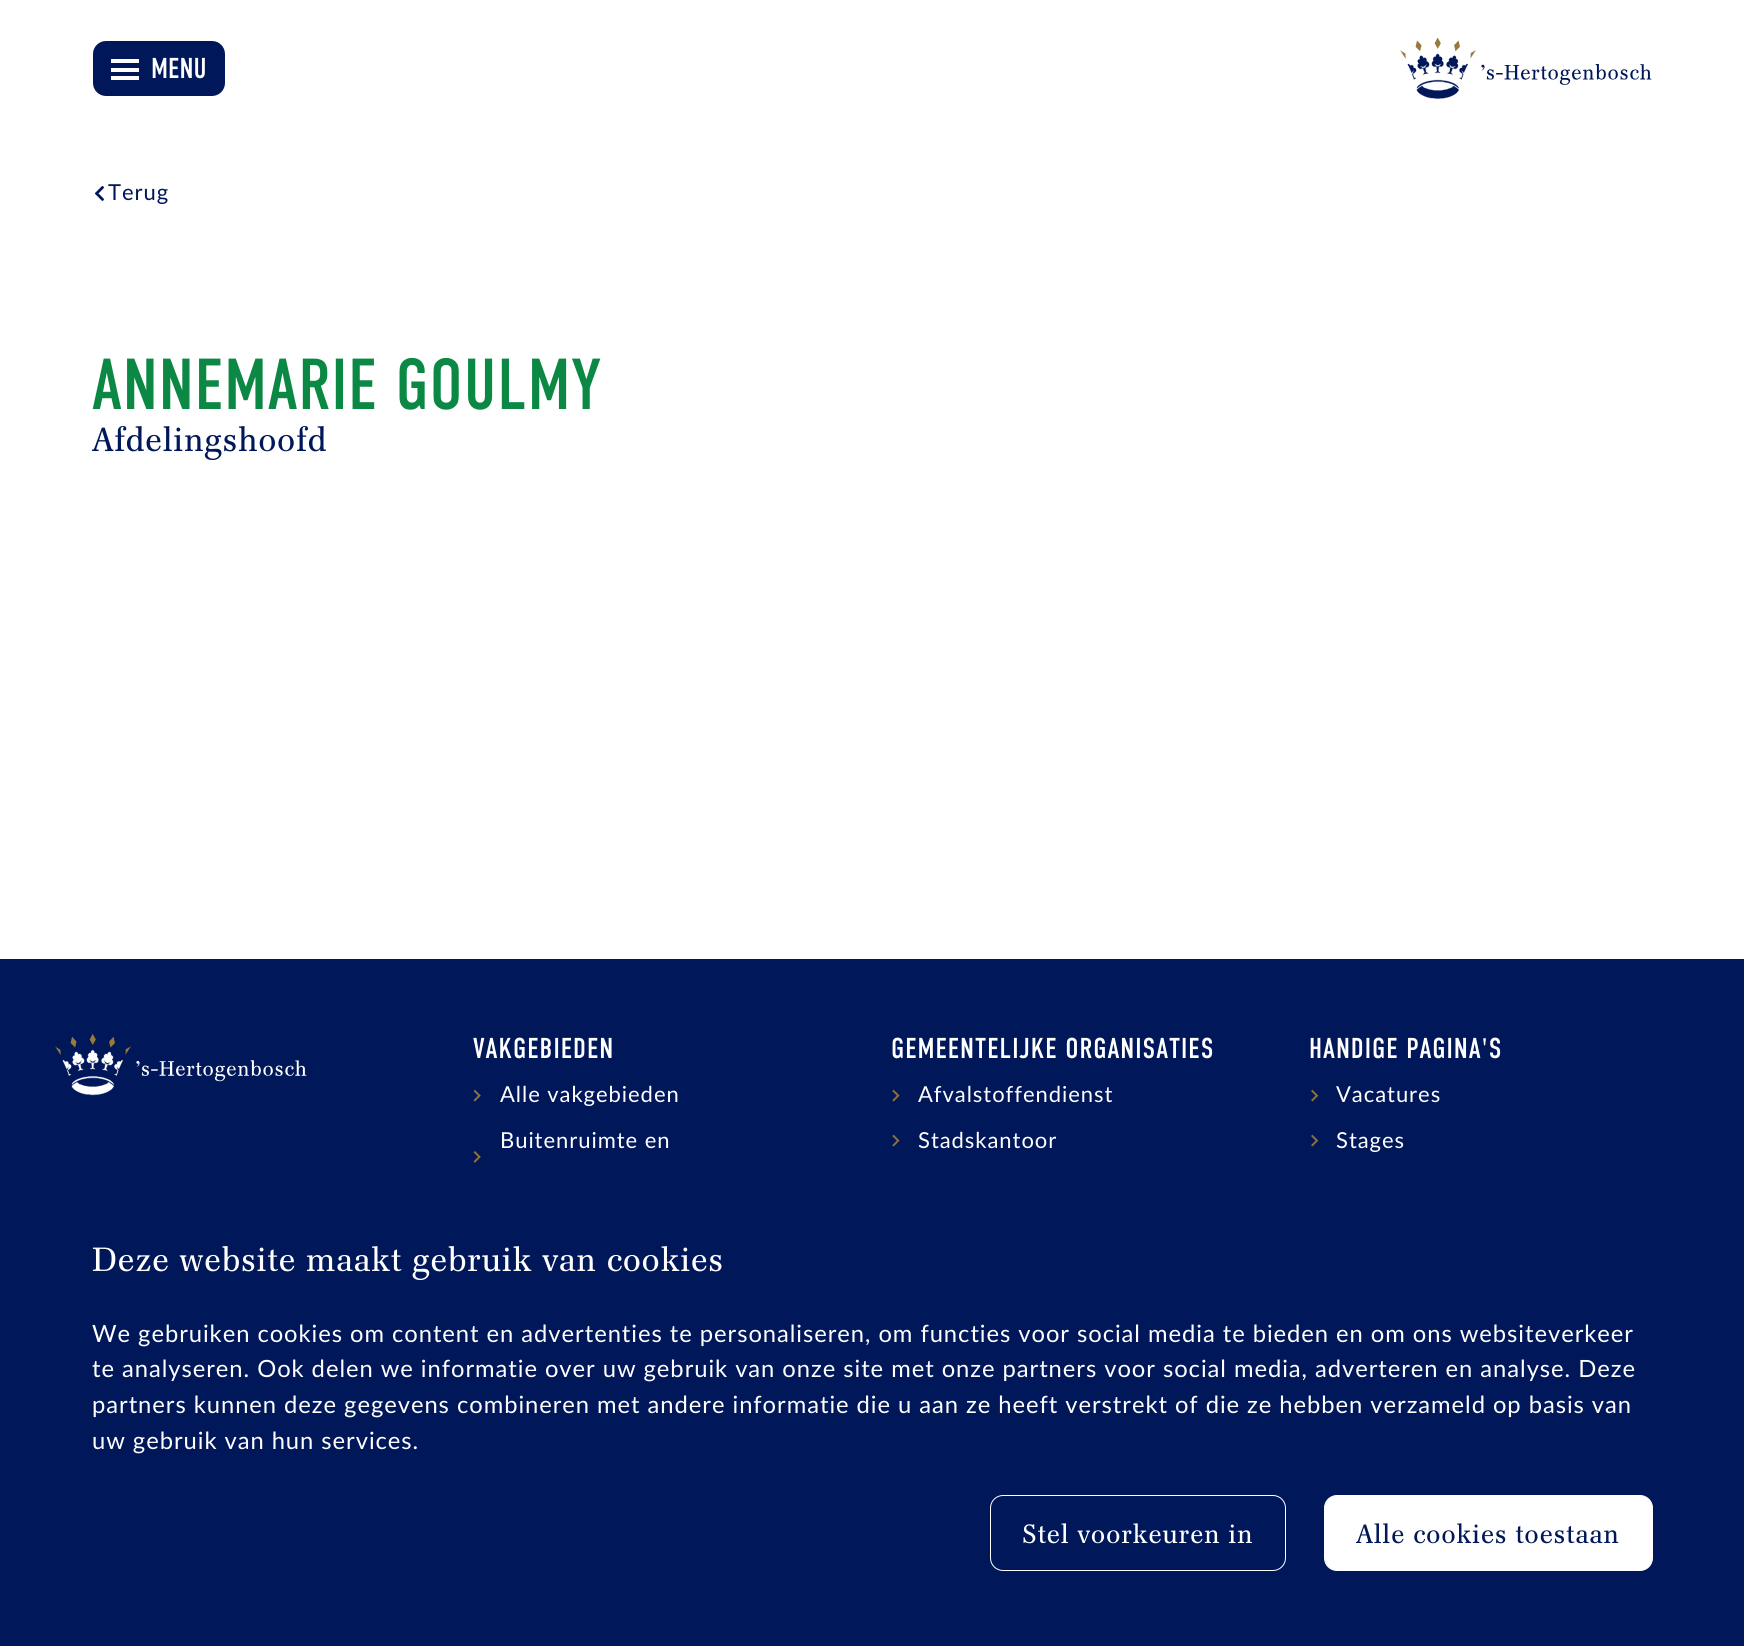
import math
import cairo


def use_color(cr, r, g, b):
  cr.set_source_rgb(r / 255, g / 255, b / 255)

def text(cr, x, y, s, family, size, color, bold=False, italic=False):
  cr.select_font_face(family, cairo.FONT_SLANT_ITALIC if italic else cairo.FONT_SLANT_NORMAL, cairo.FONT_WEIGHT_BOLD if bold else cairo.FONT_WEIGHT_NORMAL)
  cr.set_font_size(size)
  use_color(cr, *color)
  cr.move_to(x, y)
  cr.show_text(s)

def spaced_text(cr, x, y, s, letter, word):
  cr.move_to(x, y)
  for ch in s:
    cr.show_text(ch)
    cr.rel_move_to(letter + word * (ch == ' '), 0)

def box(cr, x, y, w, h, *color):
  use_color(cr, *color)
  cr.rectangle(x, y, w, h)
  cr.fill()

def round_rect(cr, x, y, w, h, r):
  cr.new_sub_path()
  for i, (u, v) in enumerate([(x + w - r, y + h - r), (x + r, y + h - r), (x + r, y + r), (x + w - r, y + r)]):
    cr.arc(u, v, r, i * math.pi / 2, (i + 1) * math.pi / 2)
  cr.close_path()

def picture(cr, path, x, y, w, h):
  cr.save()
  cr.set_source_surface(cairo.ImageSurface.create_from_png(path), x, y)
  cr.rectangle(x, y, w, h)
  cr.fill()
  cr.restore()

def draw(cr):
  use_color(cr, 255, 255, 255)
  cr.paint()
  use_color(cr, 0, 23, 89)
  round_rect(cr, 93, 41, 132, 55, 13)
  cr.fill()
  box(cr, 111, 68, 28, 4, 255, 255, 255)
  box(cr, 111, 59, 28, 4, 255, 255, 255)
  box(cr, 111, 76, 28, 4, 255, 255, 255)
  picture(cr, "img_01.png", 1400, 38, 252, 61)
  picture(cr, "img_02.png", 95, 186, 9, 15)
  box(cr, 0, 959, 1744, 687, 0, 23, 89)
  picture(cr, "img_03.png", 55, 1034, 252, 62)
  picture(cr, "img_04.png", 473, 1089, 8, 13)
  picture(cr, "img_05.png", 473, 1151, 8, 12)
  picture(cr, "img_06.png", 892, 1089, 8, 13)
  picture(cr, "img_06.png", 892, 1134, 8, 13)
  picture(cr, "img_07.png", 1311, 1089, 8, 13)
  picture(cr, "img_07.png", 1311, 1134, 8, 13)
  round_rect(cr, 990.5, 1495.5, 295, 75, 12.5)
  use_color(cr, 255, 255, 255)
  cr.set_line_width(1)
  cr.stroke()
  round_rect(cr, 1324.5, 1495.5, 328, 75, 12.5)
  cr.fill_preserve()
  cr.stroke()
  text(cr, 151, 78, "MENU", "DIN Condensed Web", 28.75, (255, 255, 255))
  cr.select_font_face("Lato")
  cr.set_font_size(22)
  use_color(cr, 0, 23, 89)
  spaced_text(cr, 108, 200, "Terug", 0.95, 0)
  cr.select_font_face("DIN Condensed Web")
  cr.set_font_size(72)
  use_color(cr, 11, 136, 68)
  spaced_text(cr, 92, 409, "ANNEMARIE GOULMY", 0.95, 0)
  cr.select_font_face("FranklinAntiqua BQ")
  cr.set_font_size(33.2)
  use_color(cr, 0, 23, 89)
  spaced_text(cr, 92, 451, "Afdelingshoofd", 0.95, 0)
  cr.select_font_face("DIN Condensed Web")
  cr.set_font_size(28.75)
  use_color(cr, 255, 255, 255)
  spaced_text(cr, 473, 1058, "VAKGEBIEDEN", 0.95, 0)
  cr.select_font_face("Lato")
  cr.set_font_size(22)
  spaced_text(cr, 500, 1102, "Alle vakgebieden", 0.95, 0)
  spaced_text(cr, 500, 1148, "Buitenruimte en", 0.95, 0)
  cr.select_font_face("DIN Condensed Web")
  cr.set_font_size(28.75)
  spaced_text(cr, 891, 1058, "GEMEENTELIJKE ORGANISATIES", 0.95, 0)
  cr.select_font_face("Lato")
  cr.set_font_size(22)
  spaced_text(cr, 918, 1102, "Afvalstoffendienst", 0.95, 0)
  spaced_text(cr, 918, 1148, "Stadskantoor", 0.95, 0)
  cr.select_font_face("DIN Condensed Web")
  cr.set_font_size(28.75)
  spaced_text(cr, 1309, 1058, "HANDIGE PAGINA'S", 0.95, 0)
  cr.select_font_face("Lato")
  cr.set_font_size(22)
  spaced_text(cr, 1336, 1102, "Vacatures", 0.95, 0)
  spaced_text(cr, 1336, 1148, "Stages", 0.95, 0)
  cr.select_font_face("FranklinAntiqua BQ")
  cr.set_font_size(33.2)
  spaced_text(cr, 92, 1271, "Deze website maakt gebruik van cookies", 0.95, 0)
  cr.select_font_face("Lato")
  cr.set_font_size(23.77)
  spaced_text(cr, 92, 1342, "We gebruiken cookies om content en advertenties te personaliseren, om functies voor social media te bieden en om ons websiteverkeer", 0.95, 0)
  spaced_text(cr, 92, 1377, "te analyseren. Ook delen we informatie over uw gebruik van onze site met onze partners voor social media, adverteren en analyse. Deze", 0.95, 0)
  spaced_text(cr, 92, 1413, "partners kunnen deze gegevens combineren met andere informatie die u aan ze heeft verstrekt of die ze hebben verzameld op basis van", 0.95, 0)
  spaced_text(cr, 92, 1449, "uw gebruik van hun services.", 0.95, 0)
  cr.select_font_face("FranklinAntiqua BQ")
  cr.set_font_size(26.25)
  spaced_text(cr, 1022, 1543, "Stel voorkeuren in", 0.95, 0)
  use_color(cr, 0, 23, 89)
  spaced_text(cr, 1356, 1543, "Alle cookies toestaan", 0.95, 0)


surface = cairo.ImageSurface(cairo.FORMAT_RGB24, 1744, 1646)
cr = cairo.Context(surface)
options = cairo.FontOptions()
options.set_hint_metrics(cairo.HINT_METRICS_OFF)
options.set_hint_style(cairo.HINT_STYLE_NONE)
cr.set_font_options(options)
cr.set_miter_limit(4)
draw(cr)
surface.write_to_png("out.png")
